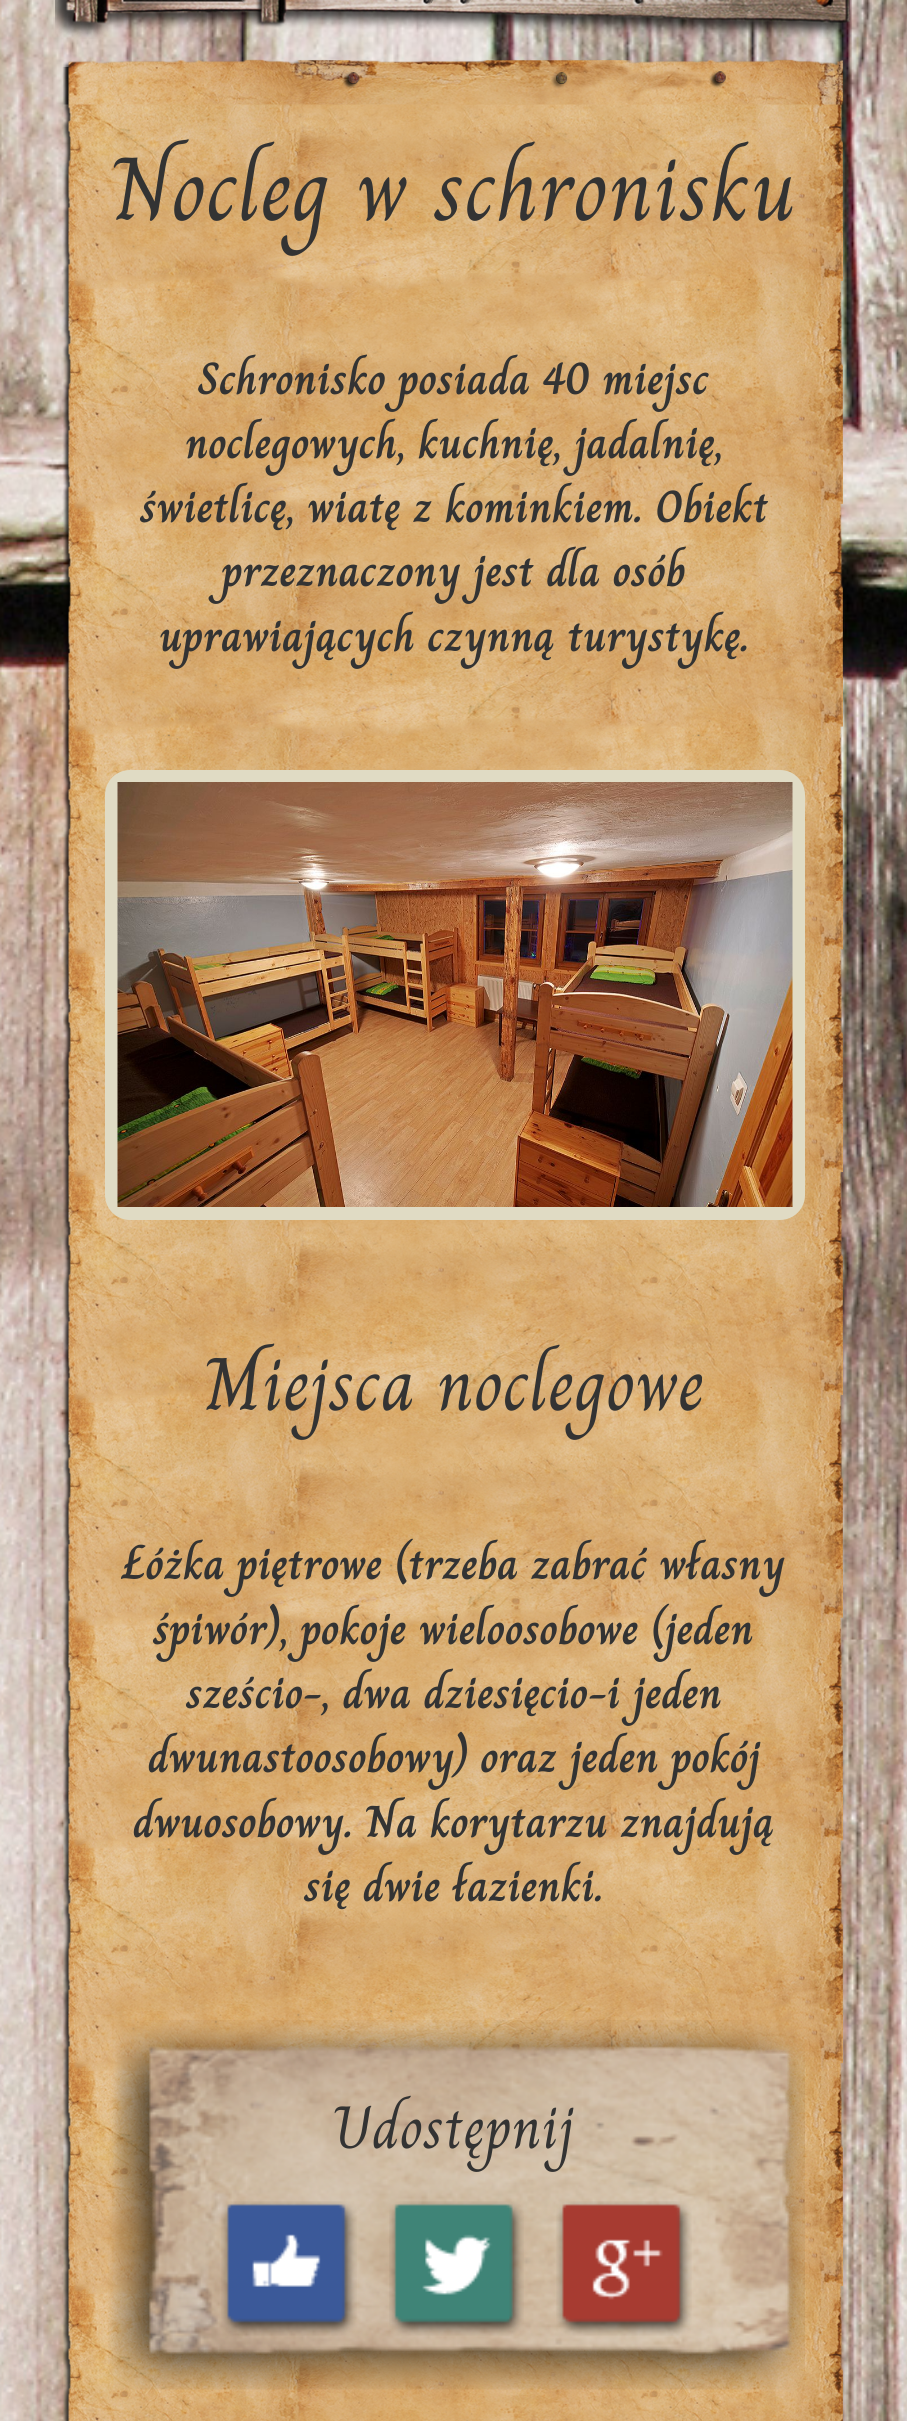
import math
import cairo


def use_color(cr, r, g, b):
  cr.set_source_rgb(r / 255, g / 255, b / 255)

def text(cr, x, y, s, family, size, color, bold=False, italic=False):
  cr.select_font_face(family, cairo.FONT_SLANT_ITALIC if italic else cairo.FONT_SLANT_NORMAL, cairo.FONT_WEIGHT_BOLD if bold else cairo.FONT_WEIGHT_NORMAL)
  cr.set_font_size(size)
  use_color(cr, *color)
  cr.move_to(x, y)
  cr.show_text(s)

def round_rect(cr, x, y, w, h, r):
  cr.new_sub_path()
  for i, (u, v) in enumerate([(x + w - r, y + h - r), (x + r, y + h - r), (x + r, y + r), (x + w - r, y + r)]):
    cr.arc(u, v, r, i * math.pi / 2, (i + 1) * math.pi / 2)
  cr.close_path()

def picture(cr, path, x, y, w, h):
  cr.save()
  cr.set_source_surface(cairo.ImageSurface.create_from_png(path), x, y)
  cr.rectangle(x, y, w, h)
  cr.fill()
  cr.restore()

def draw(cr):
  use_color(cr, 255, 255, 255)
  cr.paint()
  picture(cr, "img_01.png", 0, 1639, 907, 782)
  picture(cr, "img_02.png", 0, 0, 907, 1640)
  picture(cr, "img_03.png", 55, 0, 797, 39)
  picture(cr, "img_04.png", 62, 67, 783, 2354)
  picture(cr, "img_05.png", 63, 58, 781, 47)
  round_rect(cr, 111.5, 776.5, 687, 437, 18.5)
  use_color(cr, 224, 219, 196)
  cr.set_line_width(13)
  cr.stroke()
  picture(cr, "img_06.png", 117, 782, 676, 425)
  picture(cr, "img_07.png", 108, 2020, 697, 370)
  picture(cr, "img_08.png", 221, 2201, 136, 135)
  picture(cr, "img_09.png", 389, 2201, 135, 135)
  picture(cr, "img_10.png", 556, 2201, 136, 135)
  text(cr, 111, 220, "Nocleg w schronisku", "Charm", 90, (51, 51, 51))
  text(cr, 198, 394, "Schronisko posiada 40 miejsc", "Charm", 45, (51, 51, 51), bold=True)
  text(cr, 185, 458, "noclegowych, kuchnię, jadalnię,", "Charm", 45, (51, 51, 51), bold=True)
  text(cr, 140, 522, "świetlicę, wiatę z kominkiem. Obiekt", "Charm", 45, (51, 51, 51), bold=True)
  text(cr, 222, 586, "przeznaczony jest dla osób", "Charm", 45, (51, 51, 51), bold=True)
  text(cr, 159, 651, "uprawiających czynną turystykę.", "Charm", 45, (51, 51, 51), bold=True)
  text(cr, 204, 1410, "Miejsca noclegowe", "Charm", 75, (51, 51, 51))
  text(cr, 123, 1579, "Łóżka piętrowe (trzeba zabrać własny", "Charm", 45, (51, 51, 51), bold=True)
  text(cr, 153, 1644, "śpiwór), pokoje wieloosobowe (jeden", "Charm", 45, (51, 51, 51), bold=True)
  text(cr, 186, 1708, "sześcio-, dwa dziesięcio-i jeden", "Charm", 45, (51, 51, 51), bold=True)
  text(cr, 148, 1772, "dwunastoosobowy) oraz jeden pokój", "Charm", 45, (51, 51, 51), bold=True)
  text(cr, 133, 1837, "dwuosobowy. Na korytarzu znajdują", "Charm", 45, (51, 51, 51), bold=True)
  text(cr, 304, 1901, "się dwie łazienki.", "Charm", 45, (51, 51, 51), bold=True)
  text(cr, 333, 2148, "Udostępnij", "Charm", 60, (51, 51, 51))


surface = cairo.ImageSurface(cairo.FORMAT_RGB24, 907, 2421)
cr = cairo.Context(surface)
options = cairo.FontOptions()
options.set_hint_metrics(cairo.HINT_METRICS_OFF)
options.set_hint_style(cairo.HINT_STYLE_NONE)
cr.set_font_options(options)
cr.set_miter_limit(4)
draw(cr)
surface.write_to_png("out.png")
